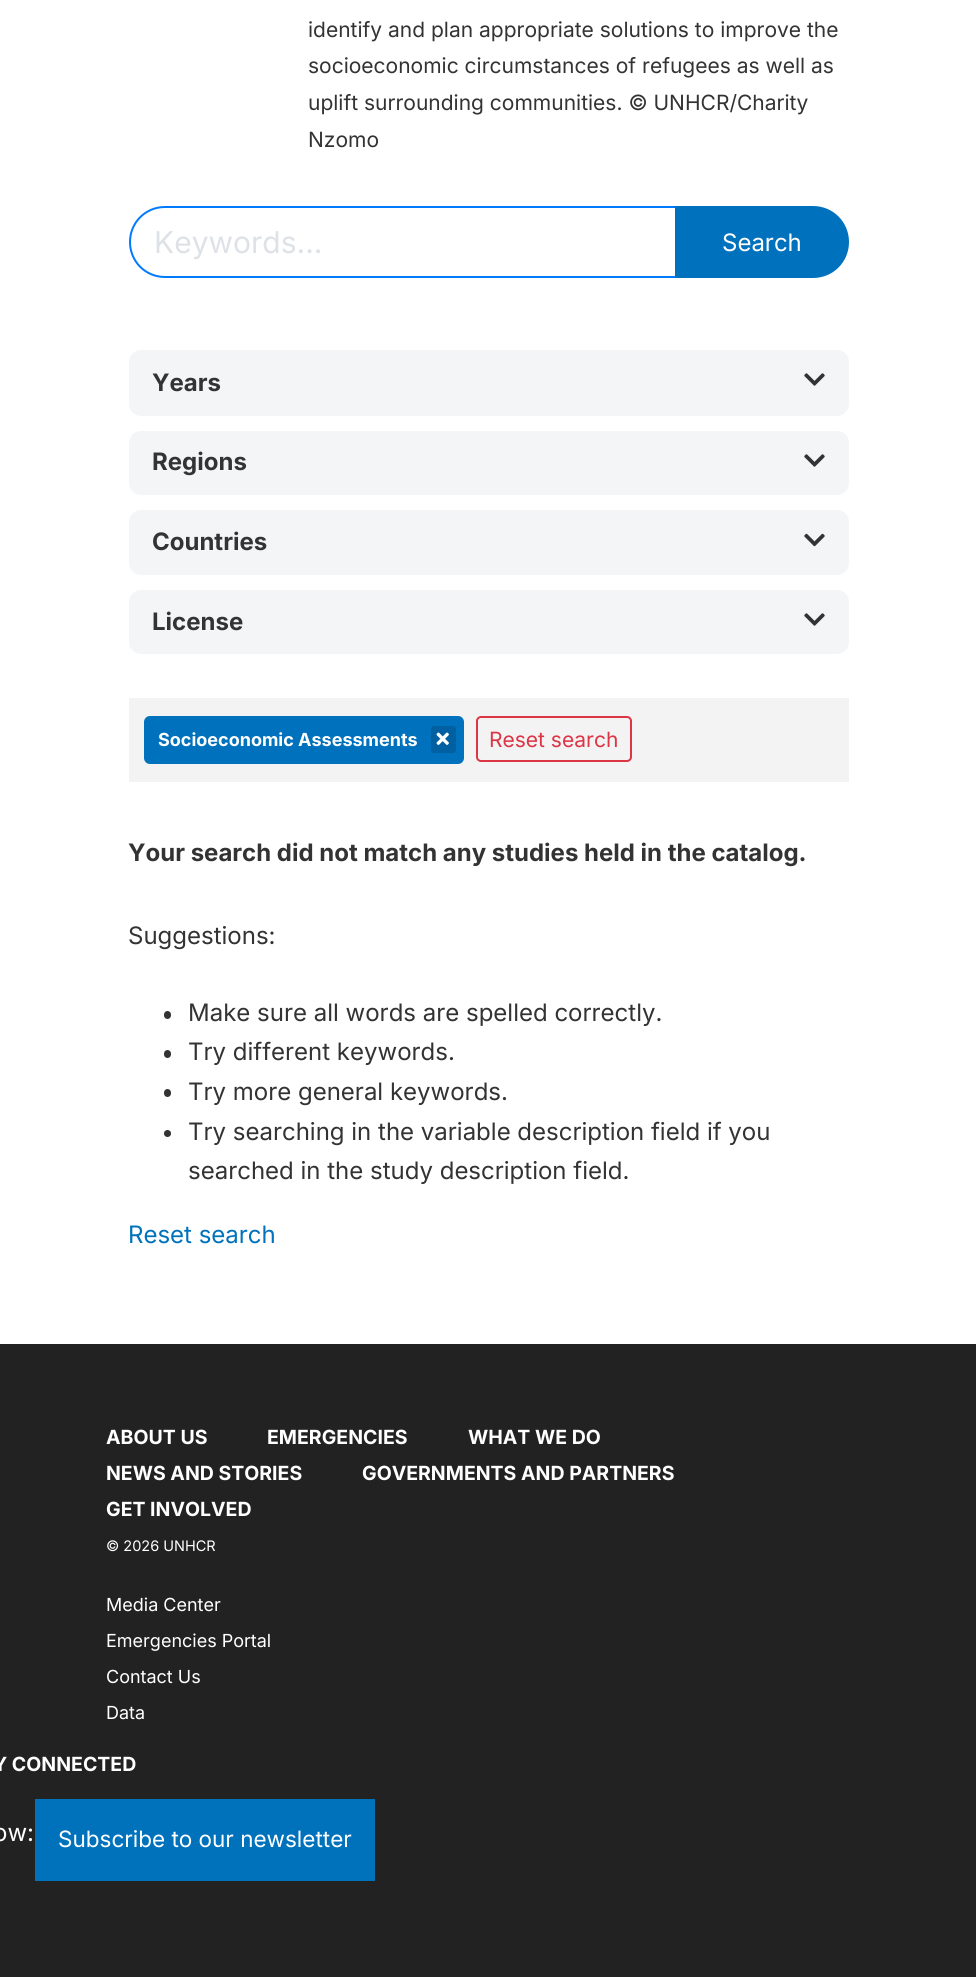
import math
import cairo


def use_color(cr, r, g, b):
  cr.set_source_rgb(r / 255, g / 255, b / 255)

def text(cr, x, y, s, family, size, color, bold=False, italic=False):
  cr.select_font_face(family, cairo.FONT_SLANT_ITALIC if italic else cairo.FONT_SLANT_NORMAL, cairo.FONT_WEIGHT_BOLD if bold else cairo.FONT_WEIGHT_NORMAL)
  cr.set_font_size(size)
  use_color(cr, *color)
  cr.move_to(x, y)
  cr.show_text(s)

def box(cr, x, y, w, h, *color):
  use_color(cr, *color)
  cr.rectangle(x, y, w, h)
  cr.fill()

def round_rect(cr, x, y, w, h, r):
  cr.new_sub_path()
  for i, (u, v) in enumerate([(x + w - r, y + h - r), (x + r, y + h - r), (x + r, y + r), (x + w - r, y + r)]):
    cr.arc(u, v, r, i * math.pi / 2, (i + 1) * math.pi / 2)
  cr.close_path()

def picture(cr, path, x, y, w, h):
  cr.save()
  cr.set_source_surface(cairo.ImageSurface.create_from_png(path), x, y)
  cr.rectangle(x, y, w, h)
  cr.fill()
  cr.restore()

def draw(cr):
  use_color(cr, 255, 255, 255)
  cr.paint()
  cr.new_path()
  cr.move_to(165, 207)
  cr.line_to(676, 207)
  cr.line_to(676, 277)
  cr.line_to(165, 277)
  cr.curve_to(145.5, 277, 130, 261.5, 130, 242)
  cr.curve_to(130, 222.5, 145.5, 207, 165, 207)
  cr.close_path()
  use_color(cr, 0, 123, 255)
  cr.stroke()
  use_color(cr, 0, 113, 189)
  cr.new_path()
  cr.move_to(676, 207)
  cr.line_to(813, 207)
  cr.curve_to(832.5, 207, 848, 222.5, 848, 242)
  cr.curve_to(848, 261.5, 832.5, 277, 813, 277)
  cr.line_to(676, 277)
  cr.close_path()
  cr.fill_preserve()
  cr.stroke()
  use_color(cr, 243, 245, 247)
  round_rect(cr, 129, 350, 720, 66, 12)
  cr.fill()
  picture(cr, "img_01.png", 804, 373, 21, 13)
  round_rect(cr, 129, 431, 720, 64, 12)
  cr.fill()
  picture(cr, "img_01.png", 804, 454, 21, 13)
  round_rect(cr, 129, 510, 720, 65, 12)
  cr.fill()
  picture(cr, "img_02.png", 804, 533, 21, 14)
  round_rect(cr, 129, 590, 720, 64, 12)
  cr.fill()
  picture(cr, "img_01.png", 804, 613, 21, 13)
  box(cr, 129, 698, 720, 84, 243, 243, 243)
  use_color(cr, 0, 113, 189)
  round_rect(cr, 144, 716, 320, 48, 6)
  cr.fill()
  use_color(cr, 0, 96, 161)
  round_rect(cr, 431, 726, 25, 27, 3)
  cr.fill()
  picture(cr, "img_03.png", 436, 732, 13, 13)
  round_rect(cr, 477, 717, 154, 44, 4)
  use_color(cr, 220, 53, 69)
  cr.stroke()
  use_color(cr, 51, 51, 51)
  round_rect(cr, 164, 1011, 7, 8, 3.5)
  cr.fill()
  round_rect(cr, 164, 1050, 7, 8, 3.5)
  cr.fill()
  round_rect(cr, 164, 1089, 7, 8, 3.5)
  cr.fill()
  cr.arc(167.5, 1133.5, 3.5, 0, 2 * math.pi)
  cr.fill()
  box(cr, 0, 1344, 976, 633, 34, 34, 34)
  box(cr, 35, 1799, 340, 82, 0, 114, 188)
  text(cr, 308, 37, "identify and plan appropriate solutions to improve the", "Inter", 21, (51, 51, 51))
  text(cr, 308, 73, "socioeconomic circumstances of refugees as well as", "Inter", 21, (51, 51, 51))
  text(cr, 308, 110, "uplift surrounding communities. © UNHCR/Charity", "Inter", 21, (51, 51, 51))
  text(cr, 308, 147, "Nzomo", "Inter", 21, (51, 51, 51))
  text(cr, 154, 253, "Keywords...", "Inter", 30, (222, 226, 230))
  text(cr, 722, 251, "Search", "Inter", 24, (255, 255, 255))
  text(cr, 152, 391, "Years", "Inter", 24, (51, 51, 51), bold=True)
  text(cr, 152, 470, "Regions", "Inter", 24, (51, 51, 51), bold=True)
  text(cr, 152, 550, "Countries", "Inter", 24, (51, 51, 51), bold=True)
  text(cr, 152, 630, "License", "Inter", 24, (51, 51, 51), bold=True)
  text(cr, 158, 746, "Socioeconomic Assessments", "Inter", 18, (255, 255, 255), bold=True)
  text(cr, 489, 747, "Reset search", "Inter", 21, (220, 53, 69))
  text(cr, 128, 861, "Your search did not match any studies held in the catalog.", "Inter", 24, (51, 51, 51), bold=True)
  text(cr, 128, 944, "Suggestions:", "Inter", 24, (51, 51, 51))
  text(cr, 188, 1021, "Make sure all words are spelled correctly.", "Inter", 24, (51, 51, 51))
  text(cr, 188, 1060, "Try different keywords.", "Inter", 24, (51, 51, 51))
  text(cr, 188, 1100, "Try more general keywords.", "Inter", 24, (51, 51, 51))
  text(cr, 188, 1140, "Try searching in the variable description field if you", "Inter", 24, (51, 51, 51))
  text(cr, 188, 1179, "searched in the study description field.", "Inter", 24, (51, 51, 51))
  text(cr, 128, 1243, "Reset search", "Inter", 24, (0, 114, 188))
  text(cr, 106, 1444, "ABOUT US", "Inter", 19.5, (255, 255, 255), bold=True)
  text(cr, 267, 1444, "EMERGENCIES", "Inter", 19.5, (255, 255, 255), bold=True)
  text(cr, 468, 1444, "WHAT WE DO", "Inter", 19.5, (255, 255, 255), bold=True)
  text(cr, 106, 1480, "NEWS AND STORIES", "Inter", 19.5, (255, 255, 255), bold=True)
  text(cr, 362, 1480, "GOVERNMENTS AND PARTNERS", "Inter", 19.5, (255, 255, 255), bold=True)
  text(cr, 106, 1516, "GET INVOLVED", "Inter", 19.5, (255, 255, 255), bold=True)
  text(cr, 106, 1551, "© 2026 UNHCR", "Inter", 14.5, (255, 255, 255))
  text(cr, 106, 1611, "Media Center", "Inter", 18, (255, 255, 255))
  text(cr, 106, 1647, "Emergencies Portal", "Inter", 18, (255, 255, 255))
  text(cr, 106, 1683, "Contact Us", "Inter", 18, (255, 255, 255))
  text(cr, 106, 1719, "Data", "Inter", 18, (255, 255, 255))
  text(cr, -7, 1771, "Y CONNECTED", "Inter", 19.5, (255, 255, 255), bold=True)
  text(cr, -7, 1841, "ow:", "Inter", 24, (255, 255, 255))
  text(cr, 58, 1847, "Subscribe to our newsletter", "Inter", 22.5, (255, 255, 255))


surface = cairo.ImageSurface(cairo.FORMAT_RGB24, 976, 1977)
cr = cairo.Context(surface)
options = cairo.FontOptions()
options.set_hint_metrics(cairo.HINT_METRICS_OFF)
options.set_hint_style(cairo.HINT_STYLE_NONE)
cr.set_font_options(options)
cr.set_miter_limit(4)
draw(cr)
surface.write_to_png("out.png")
